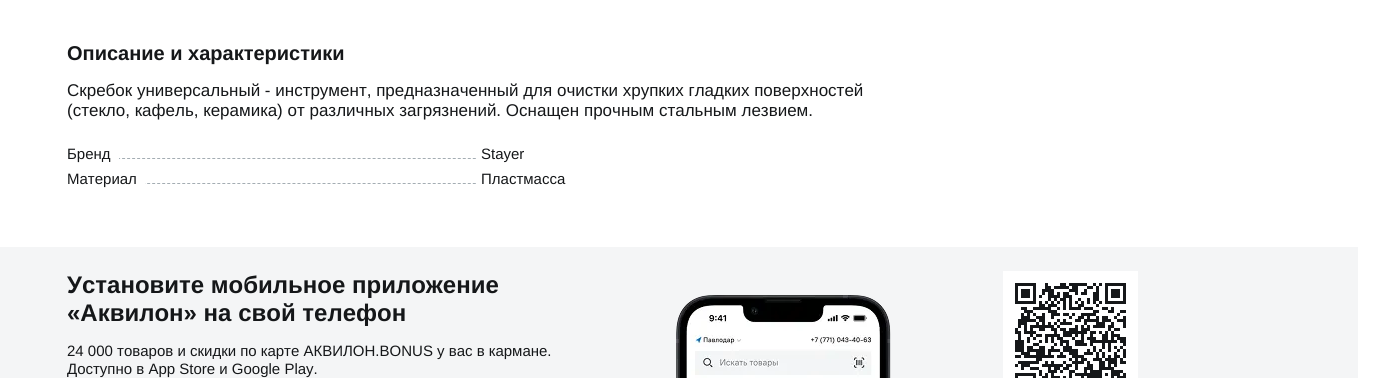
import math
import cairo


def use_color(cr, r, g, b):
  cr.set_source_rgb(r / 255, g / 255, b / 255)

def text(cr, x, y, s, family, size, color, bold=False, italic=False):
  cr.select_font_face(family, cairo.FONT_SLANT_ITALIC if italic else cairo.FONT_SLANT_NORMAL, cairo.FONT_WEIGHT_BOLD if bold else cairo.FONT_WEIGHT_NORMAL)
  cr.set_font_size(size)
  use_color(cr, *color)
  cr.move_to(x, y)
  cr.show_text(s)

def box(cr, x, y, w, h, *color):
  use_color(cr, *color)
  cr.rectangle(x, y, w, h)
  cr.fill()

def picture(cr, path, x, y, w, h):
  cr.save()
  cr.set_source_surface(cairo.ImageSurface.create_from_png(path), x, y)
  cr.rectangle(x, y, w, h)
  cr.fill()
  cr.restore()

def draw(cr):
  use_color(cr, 255, 255, 255)
  cr.paint()
  cr.new_path()
  cr.move_to(72, 158.5)
  cr.line_to(476, 158.5)
  use_color(cr, 164, 173, 179)
  cr.set_line_width(1)
  cr.set_dash([3, 2.01])
  cr.stroke()
  box(cr, 72, 158, 47, 1, 255, 255, 255)
  cr.new_path()
  cr.move_to(72, 183.5)
  cr.line_to(476, 183.5)
  use_color(cr, 164, 173, 179)
  cr.stroke()
  box(cr, 72, 183, 73, 1, 255, 255, 255)
  box(cr, 0, 247, 1358, 131, 244, 245, 246)
  picture(cr, "img_01.png", 676, 295, 215, 83)
  box(cr, 1003, 271, 135, 107, 255, 255, 255)
  picture(cr, "img_02.png", 1015, 283, 111, 95)
  text(cr, 67, 60, "Описание и характеристики", "Liberation Sans", 20, (21, 23, 25), bold=True)
  text(cr, 67, 96, "Скребок универсальный - инструмент, предназначенный для очистки хрупких гладких поверхностей", "Liberation Sans", 17, (21, 23, 25))
  text(cr, 67, 116, "(стекло, кафель, керамика) от различных загрязнений. Оснащен прочным стальным лезвием.", "Liberation Sans", 17, (21, 23, 25))
  text(cr, 67, 159, "Бренд", "Liberation Sans", 15, (21, 23, 25))
  text(cr, 481, 159, "Stayer", "Liberation Sans", 15, (21, 23, 25))
  text(cr, 67, 184, "Материал", "Liberation Sans", 15, (21, 23, 25))
  text(cr, 481, 184, "Пластмасса", "Liberation Sans", 15, (21, 23, 25))
  text(cr, 67, 293, "Установите мобильное приложение", "Liberation Sans", 24, (21, 23, 25), bold=True)
  text(cr, 67, 321, "«Аквилон» на свой телефон", "Liberation Sans", 24, (21, 23, 25), bold=True)
  text(cr, 67, 356, "24 000 товаров и скидки по карте АКВИЛОН.BONUS у вас в кармане.", "Liberation Sans", 15, (21, 23, 25))
  text(cr, 67, 374, "Доступно в App Store и Google Play.", "Liberation Sans", 15, (21, 23, 25))


surface = cairo.ImageSurface(cairo.FORMAT_RGB24, 1373, 378)
cr = cairo.Context(surface)
options = cairo.FontOptions()
options.set_hint_metrics(cairo.HINT_METRICS_OFF)
options.set_hint_style(cairo.HINT_STYLE_NONE)
cr.set_font_options(options)
cr.set_miter_limit(4)
draw(cr)
surface.write_to_png("out.png")
